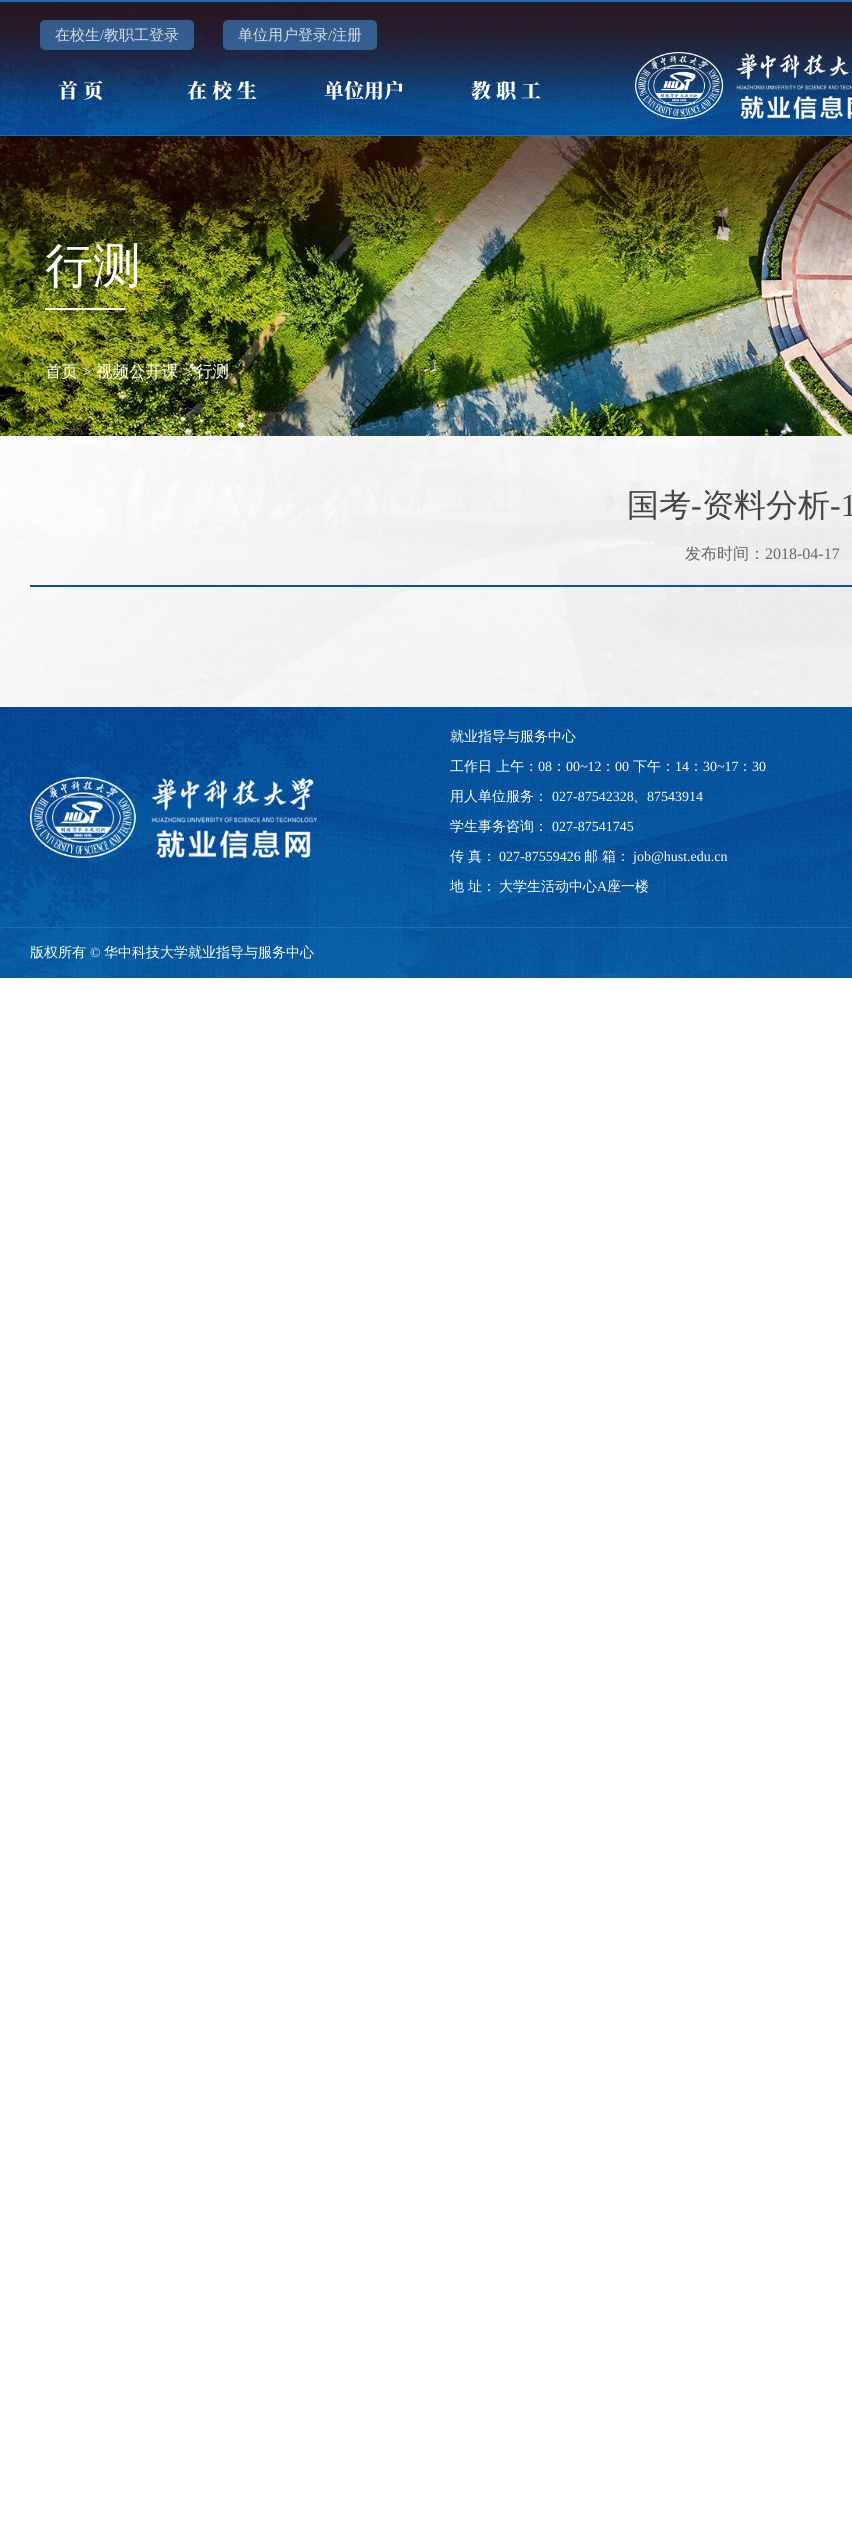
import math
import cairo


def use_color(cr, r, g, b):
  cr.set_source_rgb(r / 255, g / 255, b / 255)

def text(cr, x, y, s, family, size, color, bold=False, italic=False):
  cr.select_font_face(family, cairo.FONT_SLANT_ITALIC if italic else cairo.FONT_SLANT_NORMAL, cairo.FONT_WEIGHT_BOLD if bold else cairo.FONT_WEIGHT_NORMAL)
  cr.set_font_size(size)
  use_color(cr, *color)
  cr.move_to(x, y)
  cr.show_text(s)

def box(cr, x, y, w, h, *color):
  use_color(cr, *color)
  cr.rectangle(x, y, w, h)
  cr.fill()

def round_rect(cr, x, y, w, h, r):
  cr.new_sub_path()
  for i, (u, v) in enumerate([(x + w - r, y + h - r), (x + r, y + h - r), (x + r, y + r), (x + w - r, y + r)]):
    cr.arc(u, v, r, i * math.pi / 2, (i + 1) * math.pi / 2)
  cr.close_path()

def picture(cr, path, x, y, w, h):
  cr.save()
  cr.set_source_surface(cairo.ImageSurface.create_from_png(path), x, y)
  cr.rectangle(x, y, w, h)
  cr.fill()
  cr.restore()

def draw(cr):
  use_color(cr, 255, 255, 255)
  cr.paint()
  picture(cr, "img_01.png", 0, 2, 852, 133)
  box(cr, 0, 135, 852, 1, 26, 108, 190)
  box(cr, 0, 0, 852, 2, 26, 108, 190)
  picture(cr, "img_02.png", 0, 2, 852, 124)
  cr.set_source_rgba(0.259, 0.561, 0.851, 0.56)
  round_rect(cr, 40, 20, 154, 30, 5)
  cr.fill()
  round_rect(cr, 223, 20, 154, 30, 5)
  cr.fill()
  picture(cr, "img_03.png", 635, 52, 217, 67)
  picture(cr, "img_04.png", 0, 136, 852, 300)
  picture(cr, "img_05.png", 0, 136, 852, 139)
  box(cr, 45, 308, 80, 2, 255, 255, 255)
  picture(cr, "img_06.png", 0, 436, 852, 271)
  box(cr, 30, 585, 822, 2, 6, 84, 159)
  picture(cr, "img_07.png", 0, 707, 852, 271)
  picture(cr, "img_08.png", 30, 777, 287, 81)
  box(cr, 0, 927, 852, 1, 26, 108, 190)
  text(cr, 55, 40, "在校生", "WenQuanYi Zen Hei Medium", 15, (215, 223, 233))
  text(cr, 100, 40, "/", "Liberation Serif", 15, (215, 223, 233))
  text(cr, 104, 40, "教职工登录", "WenQuanYi Zen Hei Medium", 15, (215, 223, 233))
  text(cr, 238, 40, "单位用户登录", "WenQuanYi Zen Hei Medium", 15, (215, 223, 233))
  text(cr, 328, 40, "/", "Liberation Serif", 15, (215, 223, 233))
  text(cr, 332, 40, "注册", "WenQuanYi Zen Hei Medium", 15, (215, 223, 233))
  text(cr, 58, 98, "首 页", "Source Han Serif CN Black", 20, (255, 255, 255))
  text(cr, 187, 98, "在 校 生", "Source Han Serif CN Black", 20, (255, 255, 255))
  text(cr, 324, 98, "单位用户", "Source Han Serif CN Black", 20, (255, 255, 255))
  text(cr, 471, 98, "教 职 工", "Source Han Serif CN Black", 20, (255, 255, 255))
  text(cr, 45, 282, "行测", "WenQuanYi Zen Hei Medium", 48, (255, 255, 255))
  text(cr, 45, 377, "首页", "WenQuanYi Zen Hei Medium", 16.5, (255, 255, 255))
  text(cr, 82, 377, ">", "Liberation Serif", 16.5, (255, 255, 255))
  text(cr, 96, 377, "视频公开课", "WenQuanYi Zen Hei Medium", 16.5, (255, 255, 255))
  text(cr, 182, 377, ">", "Liberation Serif", 16.5, (255, 255, 255))
  text(cr, 196, 377, "行测", "WenQuanYi Zen Hei Medium", 16.5, (255, 255, 255))
  text(cr, 627, 516, "国考", "WenQuanYi Zen Hei Medium", 32, (68, 68, 68))
  text(cr, 691, 516, "-", "Liberation Serif", 32, (68, 68, 68))
  text(cr, 702, 516, "资料分析", "WenQuanYi Zen Hei Medium", 32, (68, 68, 68))
  text(cr, 830, 516, "-1", "Liberation Serif", 32, (68, 68, 68))
  text(cr, 685, 559, "发布时间：", "WenQuanYi Zen Hei Medium", 16, (102, 102, 102))
  text(cr, 765, 559, "2018-04-17", "Liberation Serif", 16, (102, 102, 102))
  text(cr, 450, 741, "就业指导与服务中心", "WenQuanYi Zen Hei Medium", 14, (255, 255, 255))
  text(cr, 450, 771, "工作日 上午：", "WenQuanYi Zen Hei Medium", 14, (255, 255, 255))
  text(cr, 538, 771, "08", "Liberation Serif", 14, (255, 255, 255))
  text(cr, 552, 771, "：", "WenQuanYi Zen Hei Medium", 14, (255, 255, 255))
  text(cr, 566, 771, "00~12", "Liberation Serif", 14, (255, 255, 255))
  text(cr, 601, 771, "：", "WenQuanYi Zen Hei Medium", 14, (255, 255, 255))
  text(cr, 615, 771, "00", "Liberation Serif", 14, (255, 255, 255))
  text(cr, 633, 771, "下午：", "WenQuanYi Zen Hei Medium", 14, (255, 255, 255))
  text(cr, 675, 771, "14", "Liberation Serif", 14, (255, 255, 255))
  text(cr, 689, 771, "：", "WenQuanYi Zen Hei Medium", 14, (255, 255, 255))
  text(cr, 703, 771, "30~17", "Liberation Serif", 14, (255, 255, 255))
  text(cr, 738, 771, "：", "WenQuanYi Zen Hei Medium", 14, (255, 255, 255))
  text(cr, 752, 771, "30", "Liberation Serif", 14, (255, 255, 255))
  text(cr, 450, 801, "用人单位服务：", "WenQuanYi Zen Hei Medium", 14, (255, 255, 255))
  text(cr, 552, 801, "027-87542328", "Liberation Serif", 14, (255, 255, 255))
  text(cr, 633, 801, "、", "WenQuanYi Zen Hei Medium", 14, (255, 255, 255))
  text(cr, 647, 801, "87543914", "Liberation Serif", 14, (255, 255, 255))
  text(cr, 450, 831, "学生事务咨询：", "WenQuanYi Zen Hei Medium", 14, (255, 255, 255))
  text(cr, 552, 831, "027-87541745", "Liberation Serif", 14, (255, 255, 255))
  text(cr, 450, 861, "传", "WenQuanYi Zen Hei Medium", 14, (255, 255, 255))
  text(cr, 468, 861, "真：", "WenQuanYi Zen Hei Medium", 14, (255, 255, 255))
  text(cr, 499, 861, "027-87559426", "Liberation Serif", 14, (255, 255, 255))
  text(cr, 584, 861, "邮", "WenQuanYi Zen Hei Medium", 14, (255, 255, 255))
  text(cr, 602, 861, "箱：", "WenQuanYi Zen Hei Medium", 14, (255, 255, 255))
  text(cr, 633, 861, "job@hust.edu.cn", "Liberation Serif", 14, (255, 255, 255))
  text(cr, 450, 891, "地", "WenQuanYi Zen Hei Medium", 14, (255, 255, 255))
  text(cr, 468, 891, "址：", "WenQuanYi Zen Hei Medium", 14, (255, 255, 255))
  text(cr, 499, 891, "大学生活动中心", "WenQuanYi Zen Hei Medium", 14, (255, 255, 255))
  text(cr, 597, 891, "A", "Liberation Serif", 14, (255, 255, 255))
  text(cr, 607, 891, "座一楼", "WenQuanYi Zen Hei Medium", 14, (255, 255, 255))
  text(cr, 30, 957, "版权所有", "WenQuanYi Zen Hei Medium", 14, (255, 255, 255))
  text(cr, 90, 957, "©", "Liberation Serif", 14, (255, 255, 255))
  text(cr, 104, 957, "华中科技大学就业指导与服务中心", "WenQuanYi Zen Hei Medium", 14, (255, 255, 255))


surface = cairo.ImageSurface(cairo.FORMAT_RGB24, 852, 2522)
cr = cairo.Context(surface)
options = cairo.FontOptions()
options.set_hint_metrics(cairo.HINT_METRICS_OFF)
options.set_hint_style(cairo.HINT_STYLE_NONE)
cr.set_font_options(options)
cr.set_miter_limit(4)
draw(cr)
surface.write_to_png("out.png")
